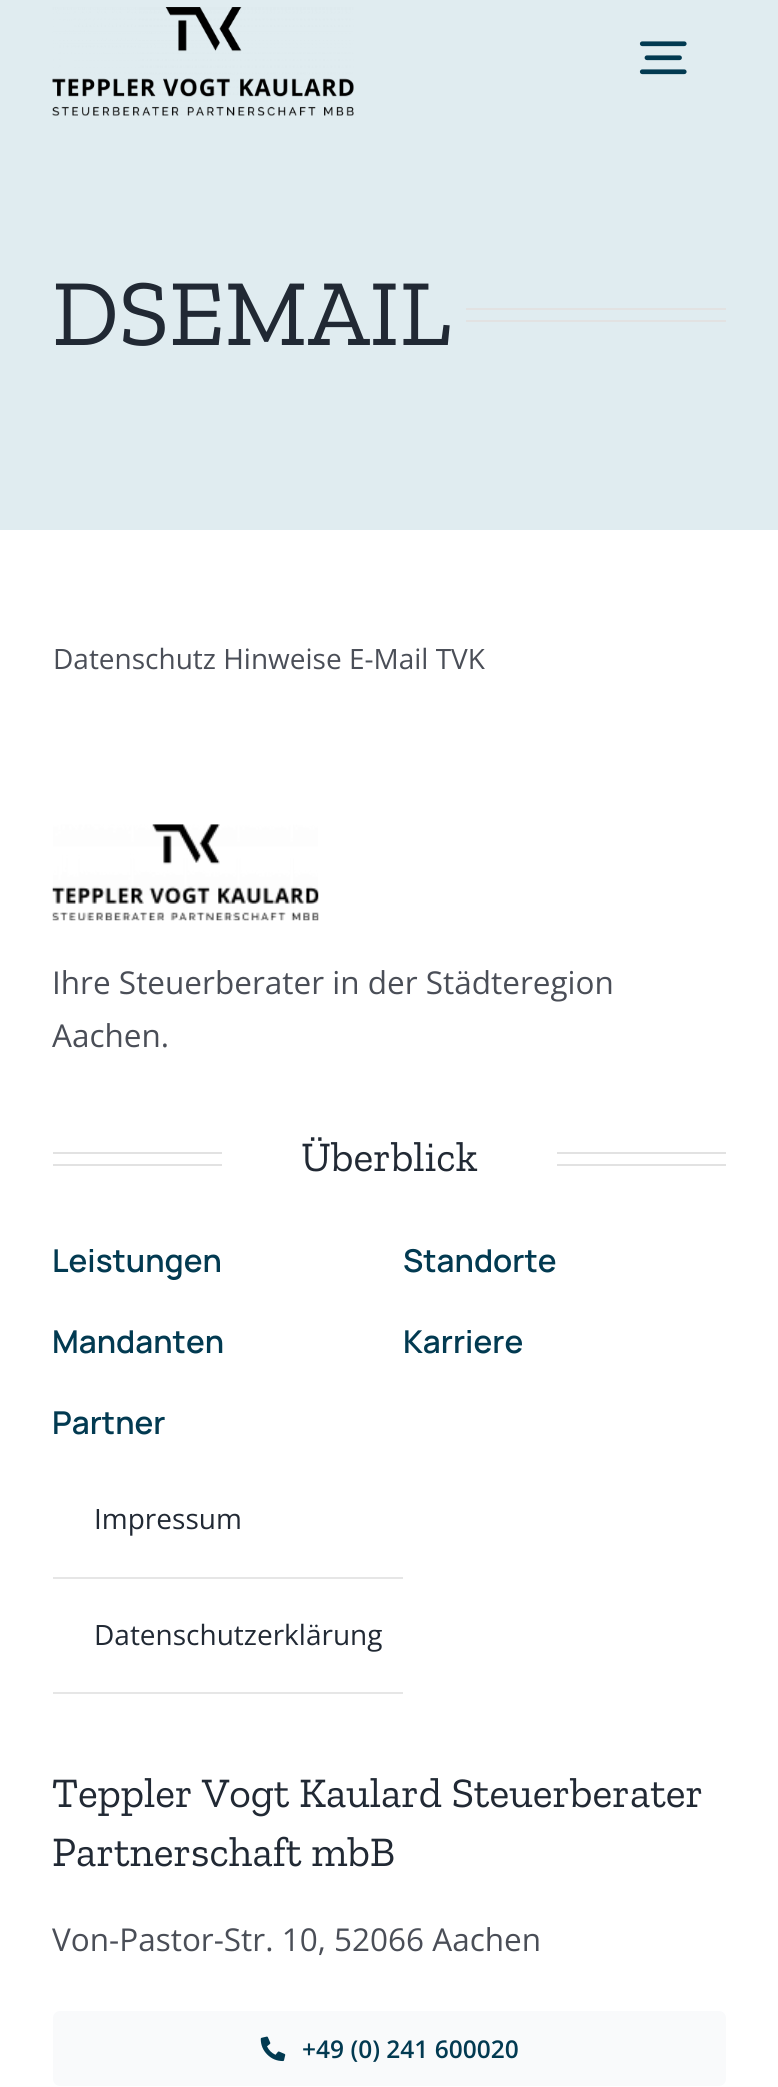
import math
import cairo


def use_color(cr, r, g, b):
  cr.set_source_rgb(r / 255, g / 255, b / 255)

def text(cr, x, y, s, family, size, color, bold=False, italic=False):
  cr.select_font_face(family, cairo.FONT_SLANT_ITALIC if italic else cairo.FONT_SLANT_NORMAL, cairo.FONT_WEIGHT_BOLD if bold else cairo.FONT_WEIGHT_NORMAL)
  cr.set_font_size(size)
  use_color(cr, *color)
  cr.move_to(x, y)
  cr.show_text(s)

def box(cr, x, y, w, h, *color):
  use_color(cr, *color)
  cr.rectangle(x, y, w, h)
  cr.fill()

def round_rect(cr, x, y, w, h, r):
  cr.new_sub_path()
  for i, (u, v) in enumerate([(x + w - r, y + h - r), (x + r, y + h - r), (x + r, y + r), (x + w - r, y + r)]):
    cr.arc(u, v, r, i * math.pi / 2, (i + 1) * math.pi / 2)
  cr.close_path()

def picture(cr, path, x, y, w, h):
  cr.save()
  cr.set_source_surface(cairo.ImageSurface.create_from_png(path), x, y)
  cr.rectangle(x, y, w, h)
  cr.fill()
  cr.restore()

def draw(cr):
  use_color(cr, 255, 255, 255)
  cr.paint()
  box(cr, 0, 0, 778, 530, 224, 236, 240)
  picture(cr, "img_01.png", 52, 7, 302, 109)
  picture(cr, "img_02.png", 639, 41, 48, 34)
  box(cr, 466, 308, 260, 2, 226, 226, 226)
  box(cr, 466, 320, 260, 2, 226, 226, 226)
  picture(cr, "img_03.png", 52, 824, 267, 97)
  box(cr, 53, 1152, 169, 2, 226, 226, 226)
  box(cr, 53, 1164, 169, 2, 226, 226, 226)
  box(cr, 557, 1152, 169, 2, 226, 226, 226)
  box(cr, 557, 1164, 169, 2, 226, 226, 226)
  box(cr, 53, 1577, 350, 2, 230, 230, 230)
  box(cr, 53, 1692, 350, 2, 230, 230, 230)
  use_color(cr, 249, 250, 251)
  round_rect(cr, 53, 2011, 673, 75, 7)
  cr.fill()
  picture(cr, "img_04.png", 260, 2036, 26, 26)
  text(cr, 52, 345, "DSEMAIL", "Zilla Slab", 94.5, (33, 41, 52))
  text(cr, 53, 669, "Datenschutz Hinweise E-Mail TVK", "Open Sans", 28, (74, 78, 87))
  text(cr, 52, 994, "Ihre Steuerberater in der Städteregion", "Open Sans", 31.5, (74, 78, 87))
  text(cr, 52, 1047, "Aachen.", "Open Sans", 31.5, (74, 78, 87))
  text(cr, 301, 1171, "Überblick", "Zilla Slab", 42, (33, 41, 52))
  text(cr, 52, 1272, "Leistungen", "Manrope SemiBold", 31.5, (2, 58, 81))
  text(cr, 52, 1353, "Mandanten", "Manrope SemiBold", 31.5, (2, 58, 81))
  text(cr, 52, 1434, "Partner", "Manrope SemiBold", 31.5, (2, 58, 81))
  text(cr, 94, 1529, "Impressum", "Open Sans", 28, (33, 41, 52))
  text(cr, 94, 1645, "Datenschutzerklärung", "Open Sans", 28, (33, 41, 52))
  text(cr, 403, 1272, "Standorte", "Manrope SemiBold", 31.5, (2, 58, 81))
  text(cr, 403, 1353, "Karriere", "Manrope SemiBold", 31.5, (2, 58, 81))
  text(cr, 52, 1807, "Teppler Vogt Kaulard Steuerberater", "Zilla Slab", 42, (33, 41, 52))
  text(cr, 52, 1866, "Partnerschaft mbB", "Zilla Slab", 42, (33, 41, 52))
  text(cr, 52, 1951, "Von-Pastor-Str. 10, 52066 Aachen", "Open Sans", 31.5, (74, 78, 87))
  text(cr, 302, 2058, "+49 (0) 241 600020", "Open Sans SemiBold", 24.5, (2, 58, 81))


surface = cairo.ImageSurface(cairo.FORMAT_RGB24, 778, 2087)
cr = cairo.Context(surface)
options = cairo.FontOptions()
options.set_hint_metrics(cairo.HINT_METRICS_OFF)
options.set_hint_style(cairo.HINT_STYLE_NONE)
cr.set_font_options(options)
cr.set_miter_limit(4)
draw(cr)
surface.write_to_png("out.png")
